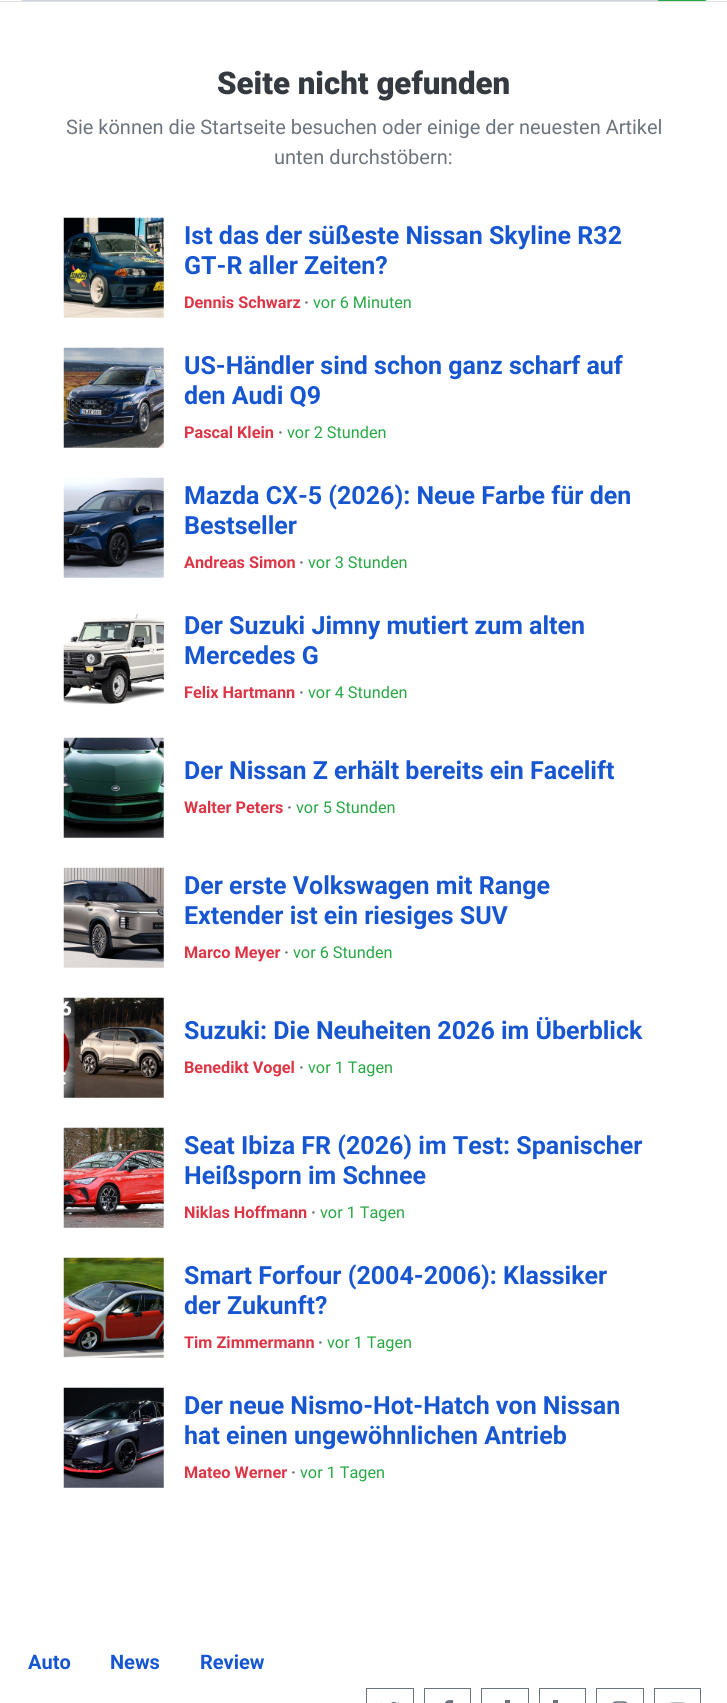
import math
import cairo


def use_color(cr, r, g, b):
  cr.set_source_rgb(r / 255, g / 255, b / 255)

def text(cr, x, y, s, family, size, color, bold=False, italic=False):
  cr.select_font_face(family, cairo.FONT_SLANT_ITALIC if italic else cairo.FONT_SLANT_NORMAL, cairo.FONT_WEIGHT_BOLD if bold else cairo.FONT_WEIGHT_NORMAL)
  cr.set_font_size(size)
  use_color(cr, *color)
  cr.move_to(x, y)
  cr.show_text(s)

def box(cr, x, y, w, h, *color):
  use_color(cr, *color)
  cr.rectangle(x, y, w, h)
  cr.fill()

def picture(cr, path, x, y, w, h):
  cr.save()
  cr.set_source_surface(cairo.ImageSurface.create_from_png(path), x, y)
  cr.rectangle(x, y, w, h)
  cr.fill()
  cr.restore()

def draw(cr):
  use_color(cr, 255, 255, 255)
  cr.paint()
  cr.new_path()
  cr.move_to(656.5, -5.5)
  cr.line_to(704, -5.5)
  cr.curve_to(706.5, -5.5, 708.5, -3.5, 708.5, -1)
  cr.line_to(708.5, -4)
  cr.curve_to(708.5, -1.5, 706.5, 0.5, 704, 0.5)
  cr.line_to(656.5, 0.5)
  cr.close_path()
  use_color(cr, 40, 167, 69)
  cr.set_line_width(1)
  cr.stroke()
  use_color(cr, 206, 212, 218)
  cr.set_fill_rule(cairo.FILL_RULE_EVEN_ODD)
  cr.new_path()
  cr.move_to(24, -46)
  cr.line_to(658, -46)
  cr.line_to(658, 1)
  cr.line_to(24, 1)
  cr.curve_to(21, 1, 19, -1, 19, -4)
  cr.line_to(19, -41)
  cr.curve_to(19, -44, 21, -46, 24, -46)
  cr.close_path()
  cr.move_to(24, -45)
  cr.line_to(658, -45)
  cr.line_to(658, 0)
  cr.line_to(24, 0)
  cr.curve_to(22, 0, 20, -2, 20, -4)
  cr.line_to(20, -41)
  cr.curve_to(20, -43, 22, -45, 24, -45)
  cr.close_path()
  cr.fill()
  box(cr, 0, 1, 727, 1, 222, 226, 230)
  picture(cr, "img_01.png", 63, 217, 101, 101)
  picture(cr, "img_02.png", 63, 347, 101, 101)
  picture(cr, "img_03.png", 63, 477, 101, 101)
  picture(cr, "img_04.png", 63, 613, 101, 92)
  picture(cr, "img_05.png", 63, 737, 101, 101)
  picture(cr, "img_06.png", 63, 867, 101, 101)
  picture(cr, "img_07.png", 63, 997, 101, 101)
  picture(cr, "img_08.png", 63, 1127, 101, 101)
  picture(cr, "img_09.png", 63, 1257, 101, 101)
  picture(cr, "img_10.png", 63, 1387, 101, 101)
  cr.rectangle(366.5, 1688.5, 47, 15)
  use_color(cr, 108, 117, 125)
  cr.stroke()
  picture(cr, "img_11.png", 381, 1701, 19, 2)
  cr.rectangle(424.5, 1688.5, 46, 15)
  cr.stroke()
  picture(cr, "img_12.png", 445, 1700, 9, 3)
  cr.rectangle(481.5, 1688.5, 47, 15)
  cr.stroke()
  box(cr, 505, 1700, 5, 3, 108, 117, 125)
  cr.rectangle(539.5, 1688.5, 46, 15)
  cr.stroke()
  box(cr, 553, 1700, 5, 3, 108, 117, 125)
  cr.rectangle(596.5, 1688.5, 47, 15)
  cr.stroke()
  picture(cr, "img_13.png", 612, 1701, 16, 2)
  cr.rectangle(654.5, 1688.5, 46, 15)
  cr.stroke()
  picture(cr, "img_14.png", 669, 1702, 17, 1)
  text(cr, 217, 94, "Seite nicht gefunden", "Roboto Black", 31.25, (52, 58, 64))
  text(cr, 66, 134, "Sie können die Startseite besuchen oder einige der neuesten Artikel", "Roboto", 20, (108, 117, 125))
  text(cr, 274, 164, "unten durchstöbern:", "Roboto", 20, (108, 117, 125))
  text(cr, 184, 244, "Ist das der süßeste Nissan Skyline R32", "Roboto", 25, (23, 86, 209), bold=True)
  text(cr, 184, 274, "GT-R aller Zeiten?", "Roboto", 25, (23, 86, 209), bold=True)
  text(cr, 184, 308, "Dennis Schwarz", "Roboto", 16.25, (220, 53, 69), bold=True)
  text(cr, 304, 308, "·", "Roboto", 16.25, (108, 117, 125), bold=True)
  text(cr, 313, 308, "vor 6 Minuten", "Roboto", 16.25, (40, 167, 69))
  text(cr, 184, 374, "US-Händler sind schon ganz scharf auf", "Roboto", 25, (23, 86, 209), bold=True)
  text(cr, 184, 404, "den Audi Q9", "Roboto", 25, (23, 86, 209), bold=True)
  text(cr, 184, 438, "Pascal Klein", "Roboto", 16.25, (220, 53, 69), bold=True)
  text(cr, 278, 438, "·", "Roboto", 16.25, (108, 117, 125), bold=True)
  text(cr, 287, 438, "vor 2 Stunden", "Roboto", 16.25, (40, 167, 69))
  text(cr, 184, 504, "Mazda CX-5 (2026): Neue Farbe für den", "Roboto", 25, (23, 86, 209), bold=True)
  text(cr, 184, 534, "Bestseller", "Roboto", 25, (23, 86, 209), bold=True)
  text(cr, 184, 568, "Andreas Simon", "Roboto", 16.25, (220, 53, 69), bold=True)
  text(cr, 299, 568, "·", "Roboto", 16.25, (108, 117, 125), bold=True)
  text(cr, 308, 568, "vor 3 Stunden", "Roboto", 16.25, (40, 167, 69))
  text(cr, 184, 634, "Der Suzuki Jimny mutiert zum alten", "Roboto", 25, (23, 86, 209), bold=True)
  text(cr, 184, 664, "Mercedes G", "Roboto", 25, (23, 86, 209), bold=True)
  text(cr, 184, 698, "Felix Hartmann", "Roboto", 16.25, (220, 53, 69), bold=True)
  text(cr, 299, 698, "·", "Roboto", 16.25, (108, 117, 125), bold=True)
  text(cr, 308, 698, "vor 4 Stunden", "Roboto", 16.25, (40, 167, 69))
  text(cr, 184, 779, "Der Nissan Z erhält bereits ein Facelift", "Roboto", 25, (23, 86, 209), bold=True)
  text(cr, 184, 813, "Walter Peters", "Roboto", 16.25, (220, 53, 69), bold=True)
  text(cr, 287, 813, "·", "Roboto", 16.25, (108, 117, 125), bold=True)
  text(cr, 296, 813, "vor 5 Stunden", "Roboto", 16.25, (40, 167, 69))
  text(cr, 184, 894, "Der erste Volkswagen mit Range", "Roboto", 25, (23, 86, 209), bold=True)
  text(cr, 184, 924, "Extender ist ein riesiges SUV", "Roboto", 25, (23, 86, 209), bold=True)
  text(cr, 184, 958, "Marco Meyer", "Roboto", 16.25, (220, 53, 69), bold=True)
  text(cr, 284, 958, "·", "Roboto", 16.25, (108, 117, 125), bold=True)
  text(cr, 293, 958, "vor 6 Stunden", "Roboto", 16.25, (40, 167, 69))
  text(cr, 184, 1039, "Suzuki: Die Neuheiten 2026 im Überblick", "Roboto", 25, (23, 86, 209), bold=True)
  text(cr, 184, 1073, "Benedikt Vogel", "Roboto", 16.25, (220, 53, 69), bold=True)
  text(cr, 299, 1073, "·", "Roboto", 16.25, (108, 117, 125), bold=True)
  text(cr, 308, 1073, "vor 1 Tagen", "Roboto", 16.25, (40, 167, 69))
  text(cr, 184, 1154, "Seat Ibiza FR (2026) im Test: Spanischer", "Roboto", 25, (23, 86, 209), bold=True)
  text(cr, 184, 1184, "Heißsporn im Schnee", "Roboto", 25, (23, 86, 209), bold=True)
  text(cr, 184, 1218, "Niklas Hoffmann", "Roboto", 16.25, (220, 53, 69), bold=True)
  text(cr, 311, 1218, "·", "Roboto", 16.25, (108, 117, 125), bold=True)
  text(cr, 320, 1218, "vor 1 Tagen", "Roboto", 16.25, (40, 167, 69))
  text(cr, 184, 1284, "Smart Forfour (2004-2006): Klassiker", "Roboto", 25, (23, 86, 209), bold=True)
  text(cr, 184, 1314, "der Zukunft?", "Roboto", 25, (23, 86, 209), bold=True)
  text(cr, 184, 1348, "Tim Zimmermann", "Roboto", 16.25, (220, 53, 69), bold=True)
  text(cr, 318, 1348, "·", "Roboto", 16.25, (108, 117, 125), bold=True)
  text(cr, 327, 1348, "vor 1 Tagen", "Roboto", 16.25, (40, 167, 69))
  text(cr, 184, 1414, "Der neue Nismo-Hot-Hatch von Nissan", "Roboto", 25, (23, 86, 209), bold=True)
  text(cr, 184, 1444, "hat einen ungewöhnlichen Antrieb", "Roboto", 25, (23, 86, 209), bold=True)
  text(cr, 184, 1478, "Mateo Werner", "Roboto", 16.25, (220, 53, 69), bold=True)
  text(cr, 291, 1478, "·", "Roboto", 16.25, (108, 117, 125), bold=True)
  text(cr, 300, 1478, "vor 1 Tagen", "Roboto", 16.25, (40, 167, 69))
  text(cr, 28, 1669, "Auto", "Roboto", 20, (23, 86, 209), bold=True)
  text(cr, 110, 1669, "News", "Roboto", 20, (23, 86, 209), bold=True)
  text(cr, 200, 1669, "Review", "Roboto", 20, (23, 86, 209), bold=True)


surface = cairo.ImageSurface(cairo.FORMAT_RGB24, 727, 1703)
cr = cairo.Context(surface)
options = cairo.FontOptions()
options.set_hint_metrics(cairo.HINT_METRICS_OFF)
options.set_hint_style(cairo.HINT_STYLE_NONE)
cr.set_font_options(options)
cr.set_miter_limit(4)
draw(cr)
surface.write_to_png("out.png")
